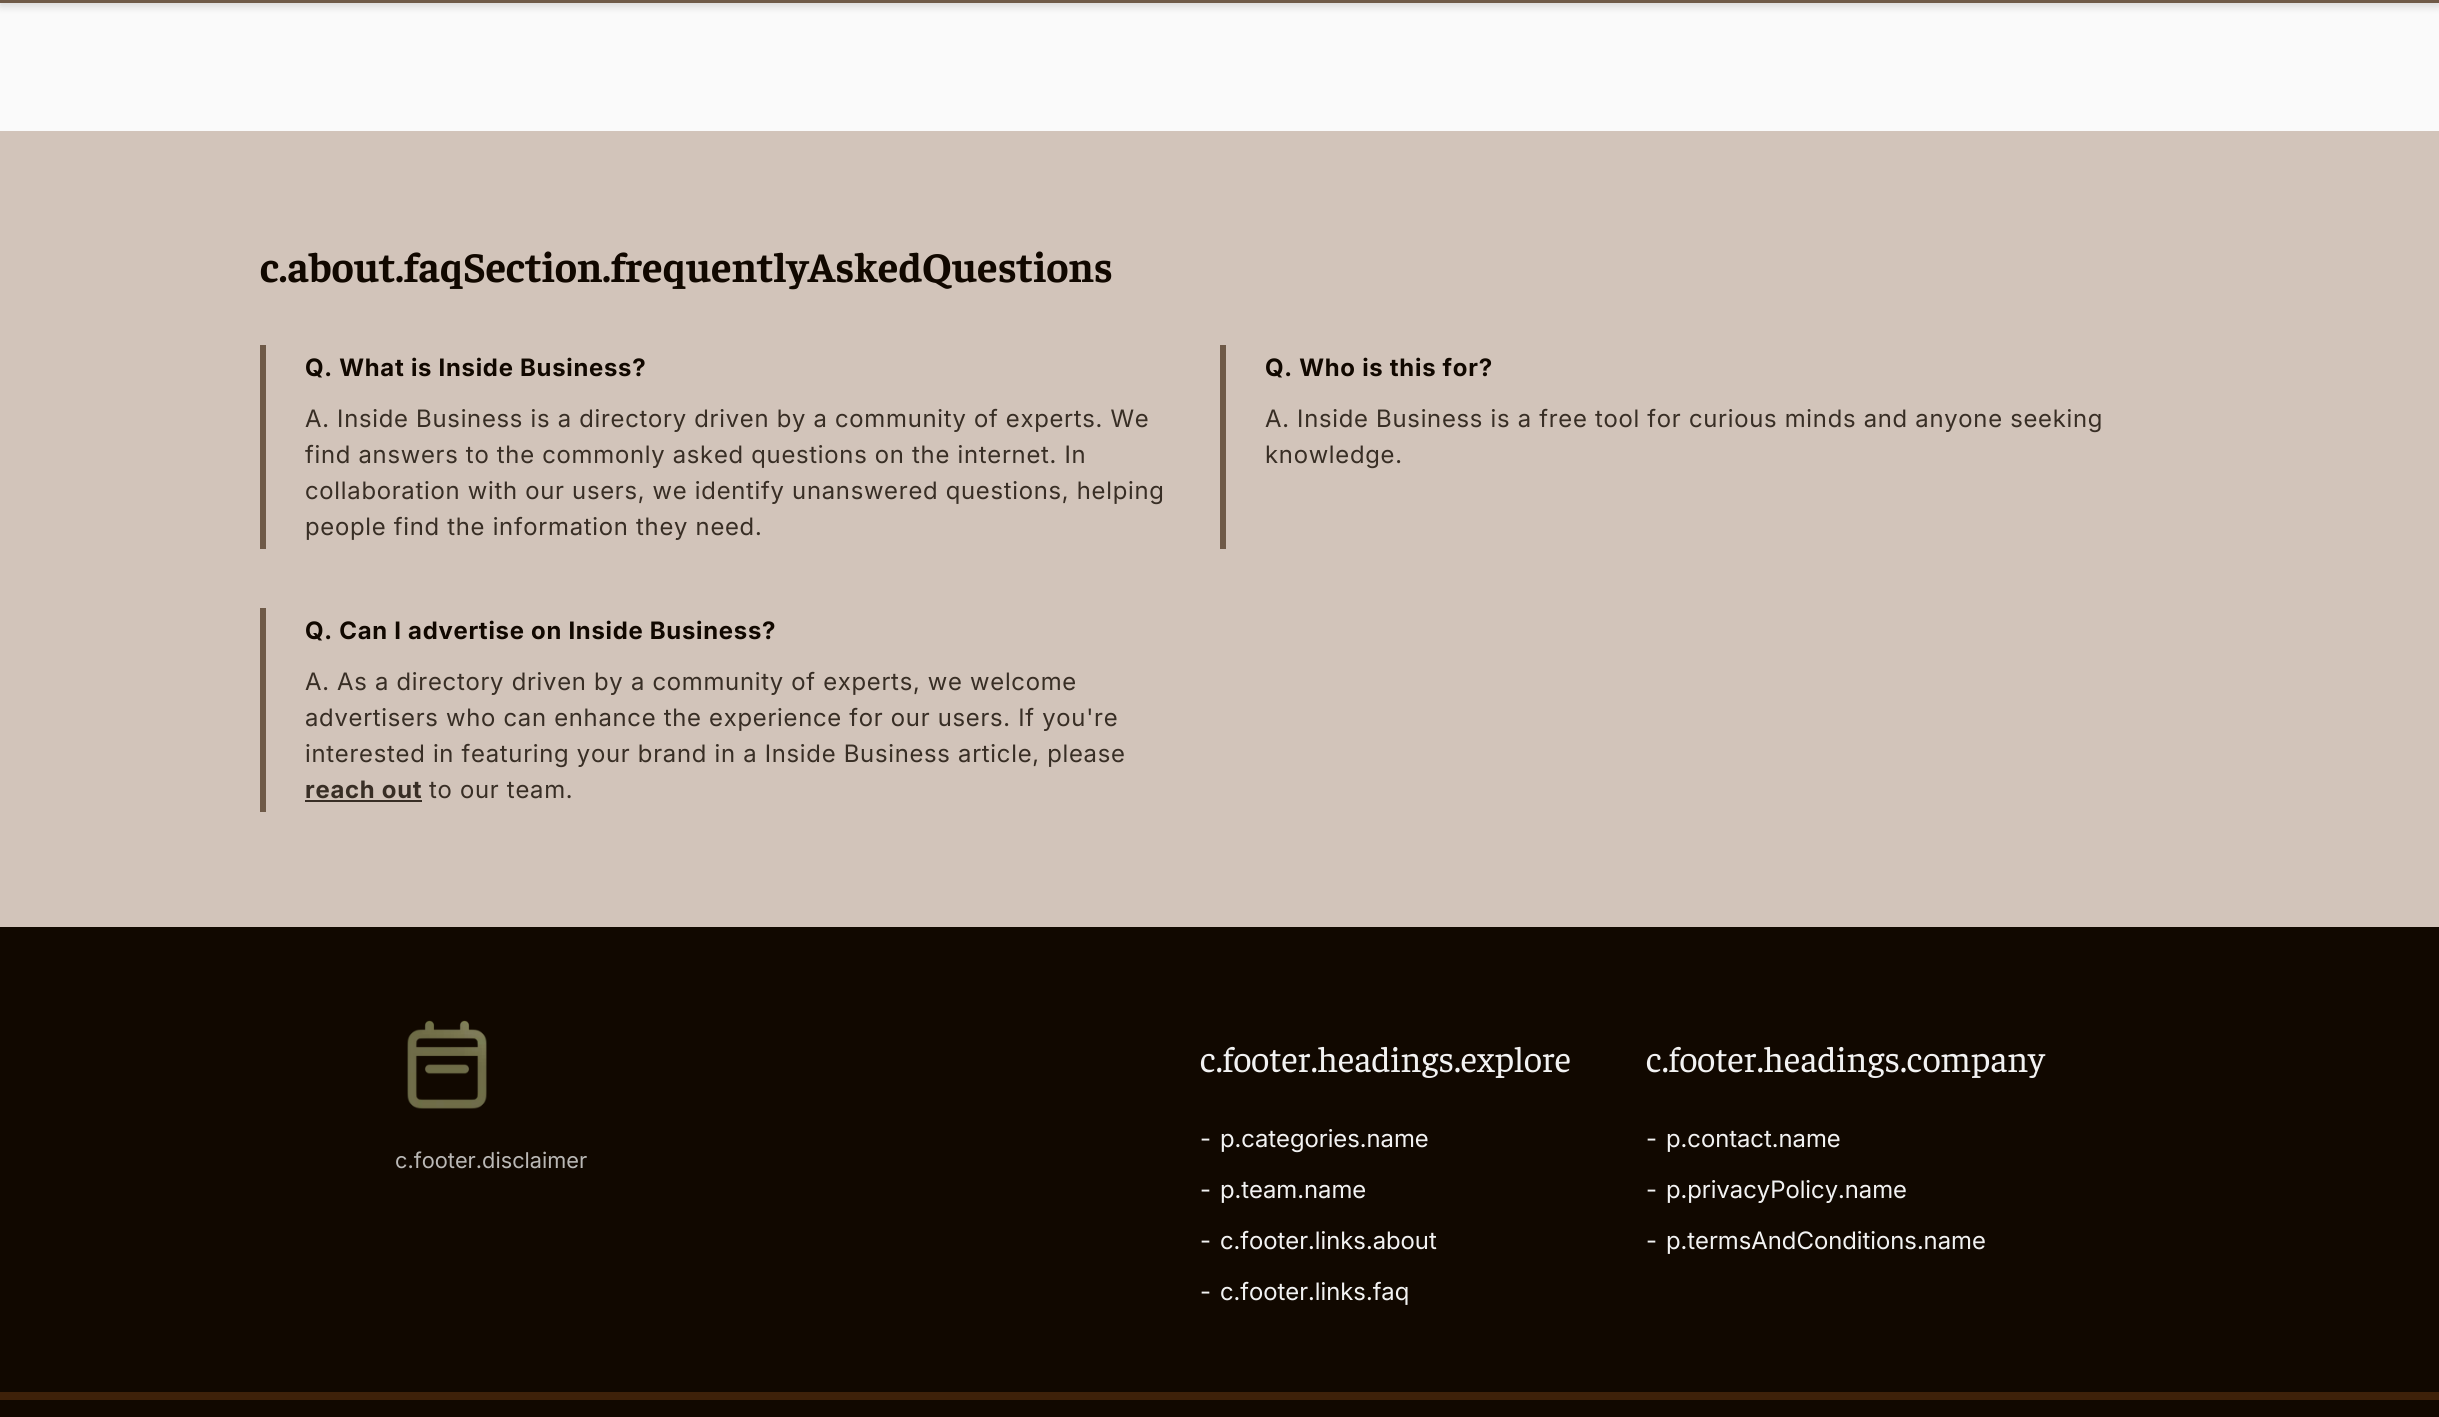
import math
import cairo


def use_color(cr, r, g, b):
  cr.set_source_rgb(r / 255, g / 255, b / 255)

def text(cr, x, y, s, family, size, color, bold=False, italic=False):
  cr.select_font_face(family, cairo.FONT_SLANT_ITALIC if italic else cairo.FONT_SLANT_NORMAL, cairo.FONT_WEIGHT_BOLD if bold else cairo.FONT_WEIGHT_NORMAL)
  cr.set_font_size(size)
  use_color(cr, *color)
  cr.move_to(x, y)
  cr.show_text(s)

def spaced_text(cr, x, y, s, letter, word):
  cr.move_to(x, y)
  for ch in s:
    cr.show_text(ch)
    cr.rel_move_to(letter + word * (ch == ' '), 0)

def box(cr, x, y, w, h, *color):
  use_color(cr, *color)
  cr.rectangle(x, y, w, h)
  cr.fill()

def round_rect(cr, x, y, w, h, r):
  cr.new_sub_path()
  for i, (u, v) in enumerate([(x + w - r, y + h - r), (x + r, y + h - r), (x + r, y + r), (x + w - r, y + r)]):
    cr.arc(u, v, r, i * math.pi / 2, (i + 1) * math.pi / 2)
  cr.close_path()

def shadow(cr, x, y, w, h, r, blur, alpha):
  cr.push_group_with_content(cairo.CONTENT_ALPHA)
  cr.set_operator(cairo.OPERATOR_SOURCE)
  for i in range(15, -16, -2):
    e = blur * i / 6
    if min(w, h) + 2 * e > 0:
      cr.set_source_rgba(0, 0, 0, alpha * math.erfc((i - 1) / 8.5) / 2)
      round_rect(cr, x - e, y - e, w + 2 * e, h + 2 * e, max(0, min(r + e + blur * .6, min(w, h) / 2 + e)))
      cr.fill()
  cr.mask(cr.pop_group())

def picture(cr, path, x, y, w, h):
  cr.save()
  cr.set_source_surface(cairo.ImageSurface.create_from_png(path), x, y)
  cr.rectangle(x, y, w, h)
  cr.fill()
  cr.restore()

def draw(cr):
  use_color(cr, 250, 250, 250)
  cr.paint()
  use_color(cr, 0, 0, 0)
  shadow(cr, 0, -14, 2439, 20, 0, 4.5, 0.15)
  box(cr, 0, 0, 2439, 3, 111, 90, 72)
  box(cr, 0, 131, 2439, 796, 210, 196, 186)
  box(cr, 260, 345, 6, 204, 111, 90, 72)
  box(cr, 1220, 345, 6, 204, 111, 90, 72)
  box(cr, 260, 608, 6, 204, 111, 90, 72)
  box(cr, 305, 800, 117, 2, 56, 46, 37)
  box(cr, 0, 927, 2439, 490, 17, 8, 0)
  picture(cr, "img_01.png", 407, 1020, 80, 89)
  box(cr, 0, 1392, 2439, 8, 62, 33, 9)
  text(cr, 260, 282, "c.about.faqSection.frequentlyAskedQuestions", "Faustina", 42, (17, 8, 0), bold=True)
  cr.select_font_face("Inter", cairo.FONT_SLANT_NORMAL, cairo.FONT_WEIGHT_BOLD)
  cr.set_font_size(24)
  spaced_text(cr, 305, 376, "Q. What is Inside Business?", 0.75, 0)
  cr.select_font_face("Inter")
  use_color(cr, 56, 46, 37)
  spaced_text(cr, 305, 427, "A. Inside Business is a directory driven by a community of experts. We", 0.75, 0)
  spaced_text(cr, 305, 463, "find answers to the commonly asked questions on the internet. In", 0.75, 0)
  spaced_text(cr, 305, 499, "collaboration with our users, we identify unanswered questions, helping", 0.75, 0)
  spaced_text(cr, 305, 535, "people find the information they need.", 0.75, 0)
  cr.select_font_face("Inter", cairo.FONT_SLANT_NORMAL, cairo.FONT_WEIGHT_BOLD)
  use_color(cr, 17, 8, 0)
  spaced_text(cr, 1265, 376, "Q. Who is this for?", 0.75, 0)
  cr.select_font_face("Inter")
  use_color(cr, 56, 46, 37)
  spaced_text(cr, 1265, 427, "A. Inside Business is a free tool for curious minds and anyone seeking", 0.75, 0)
  spaced_text(cr, 1265, 463, "knowledge.", 0.75, 0)
  cr.select_font_face("Inter", cairo.FONT_SLANT_NORMAL, cairo.FONT_WEIGHT_BOLD)
  use_color(cr, 17, 8, 0)
  spaced_text(cr, 305, 639, "Q. Can I advertise on Inside Business?", 0.75, 0)
  cr.select_font_face("Inter")
  use_color(cr, 56, 46, 37)
  spaced_text(cr, 305, 690, "A. As a directory driven by a community of experts, we welcome", 0.75, 0)
  spaced_text(cr, 305, 726, "advertisers who can enhance the experience for our users. If you're", 0.75, 0)
  spaced_text(cr, 305, 762, "interested in featuring your brand in a Inside Business article, please", 0.75, 0)
  cr.select_font_face("Inter", cairo.FONT_SLANT_NORMAL, cairo.FONT_WEIGHT_BOLD)
  spaced_text(cr, 305, 798, "reach out", 0.75, 0)
  cr.select_font_face("Inter")
  spaced_text(cr, 429, 798, "to our team.", 0.75, 0)
  text(cr, 395, 1168, "c.footer.disclaimer", "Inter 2", 21.75, (186, 184, 182))
  text(cr, 1200, 1072, "c.footer.headings.explore", "Faustina", 36, (242, 242, 242))
  text(cr, 1200, 1147, "-", "Inter", 24, (242, 242, 242))
  text(cr, 1220, 1147, "p.categories.name", "Inter", 24, (242, 242, 242))
  text(cr, 1200, 1198, "-", "Inter", 24, (242, 242, 242))
  text(cr, 1220, 1198, "p.team.name", "Inter", 24, (242, 242, 242))
  text(cr, 1200, 1249, "-", "Inter", 24, (242, 242, 242))
  text(cr, 1220, 1249, "c.footer.links.about", "Inter", 24, (242, 242, 242))
  text(cr, 1200, 1300, "-", "Inter", 24, (242, 242, 242))
  text(cr, 1220, 1300, "c.footer.links.faq", "Inter", 24, (242, 242, 242))
  text(cr, 1646, 1072, "c.footer.headings.company", "Faustina", 36, (242, 242, 242))
  text(cr, 1646, 1147, "-", "Inter", 24, (242, 242, 242))
  text(cr, 1666, 1147, "p.contact.name", "Inter", 24, (242, 242, 242))
  text(cr, 1646, 1198, "-", "Inter", 24, (242, 242, 242))
  text(cr, 1666, 1198, "p.privacyPolicy.name", "Inter", 24, (242, 242, 242))
  text(cr, 1646, 1249, "-", "Inter", 24, (242, 242, 242))
  text(cr, 1666, 1249, "p.termsAndConditions.name", "Inter", 24, (242, 242, 242))


surface = cairo.ImageSurface(cairo.FORMAT_RGB24, 2439, 1417)
cr = cairo.Context(surface)
options = cairo.FontOptions()
options.set_hint_metrics(cairo.HINT_METRICS_OFF)
options.set_hint_style(cairo.HINT_STYLE_NONE)
cr.set_font_options(options)
cr.set_miter_limit(4)
draw(cr)
surface.write_to_png("out.png")
